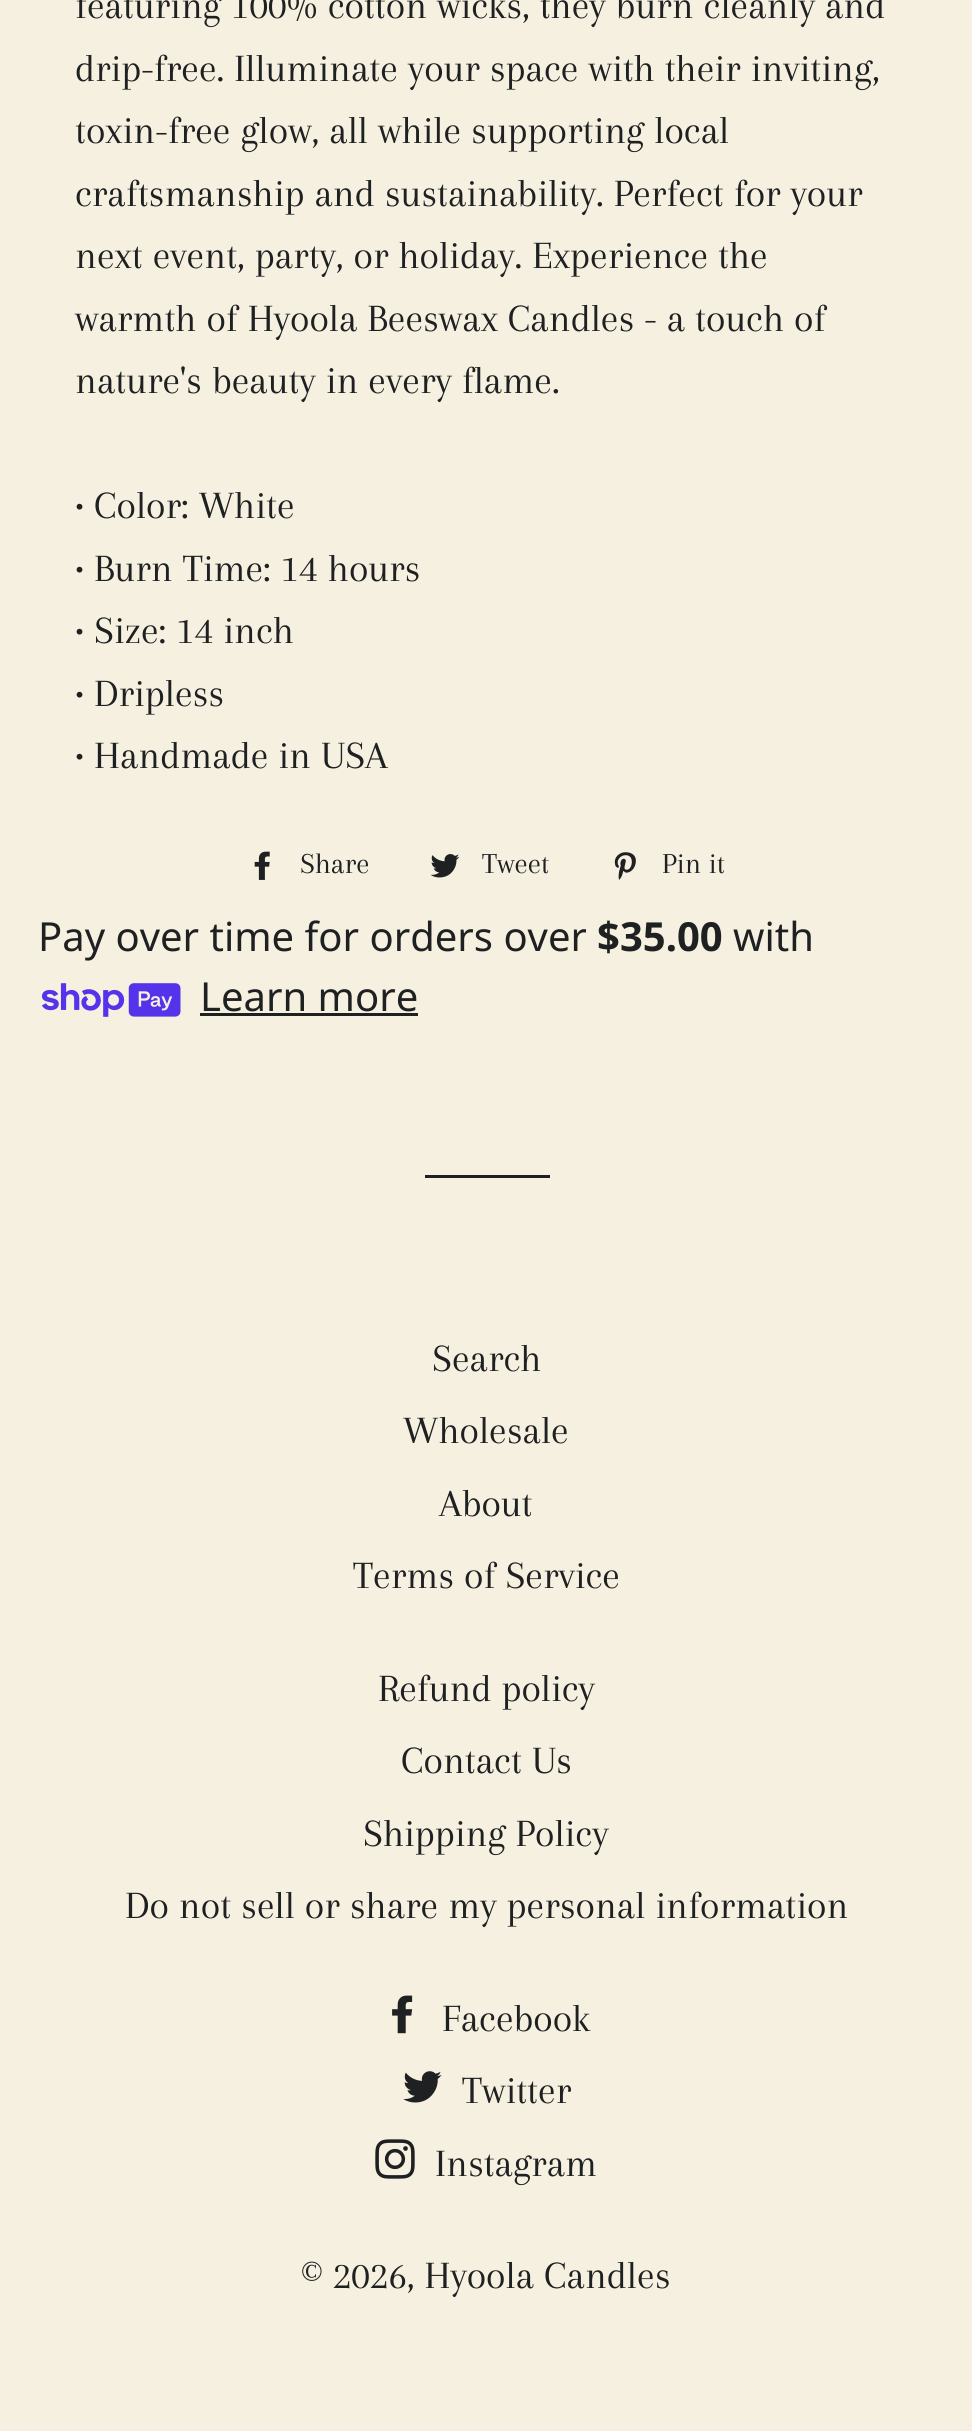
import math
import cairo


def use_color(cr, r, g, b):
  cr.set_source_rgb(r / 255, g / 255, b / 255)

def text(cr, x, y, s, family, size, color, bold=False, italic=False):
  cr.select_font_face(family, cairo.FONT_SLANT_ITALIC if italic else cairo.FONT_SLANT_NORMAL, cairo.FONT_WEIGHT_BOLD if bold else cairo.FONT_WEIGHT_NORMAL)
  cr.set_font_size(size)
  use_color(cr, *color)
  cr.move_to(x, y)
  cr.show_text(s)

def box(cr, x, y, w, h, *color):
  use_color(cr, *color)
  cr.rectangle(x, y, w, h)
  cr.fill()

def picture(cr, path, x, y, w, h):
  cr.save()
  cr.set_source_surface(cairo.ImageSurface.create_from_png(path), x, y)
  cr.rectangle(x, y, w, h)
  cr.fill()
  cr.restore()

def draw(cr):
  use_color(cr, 245, 240, 224)
  cr.paint()
  picture(cr, "img_01.png", 254, 851, 16, 29)
  picture(cr, "img_02.png", 430, 854, 30, 24)
  picture(cr, "img_03.png", 614, 852, 22, 28)
  picture(cr, "img_04.png", 42, 983, 139, 34)
  box(cr, 200, 1013, 218, 3, 31, 32, 33)
  box(cr, 425, 1175, 125, 3, 31, 32, 33)
  picture(cr, "img_05.png", 392, 1995, 21, 39)
  picture(cr, "img_06.png", 403, 2071, 39, 32)
  picture(cr, "img_07.png", 375, 2139, 40, 40)
  text(cr, 75, 18, "featuring 100% cotton wicks, they burn cleanly and", "Arapey", 40, (31, 32, 33))
  text(cr, 75, 81, "drip-free. Illuminate your space with their inviting,", "Arapey", 40, (31, 32, 33))
  text(cr, 75, 143, "toxin-free glow, all while supporting local", "Arapey", 40, (31, 32, 33))
  text(cr, 75, 206, "craftsmanship and sustainability. Perfect for your", "Arapey", 40, (31, 32, 33))
  text(cr, 75, 268, "next event, party, or holiday. Experience the", "Arapey", 40, (31, 32, 33))
  text(cr, 75, 331, "warmth of Hyoola Beeswax Candles - a touch of", "Arapey", 40, (31, 32, 33))
  text(cr, 75, 393, "nature's beauty in every flame.", "Arapey", 40, (31, 32, 33))
  text(cr, 75, 518, "• Color: White", "Arapey", 40, (31, 32, 33))
  text(cr, 75, 581, "• Burn Time: 14 hours", "Arapey", 40, (31, 32, 33))
  text(cr, 75, 643, "• Size: 14 inch", "Arapey", 40, (31, 32, 33))
  text(cr, 75, 706, "• Dripless", "Arapey", 40, (31, 32, 33))
  text(cr, 75, 768, "• Handmade in USA", "Arapey", 40, (31, 32, 33))
  text(cr, 300, 873, "Share", "Arapey", 30, (31, 32, 33))
  text(cr, 482, 873, "Tweet", "Arapey", 30, (31, 32, 33))
  text(cr, 662, 873, "Pin it", "Arapey", 30, (31, 32, 33))
  text(cr, 38, 951, "Pay over time for orders over", "Noto Sans", 40, (31, 32, 33))
  text(cr, 597, 951, "$35.00", "Noto Sans", 40, (31, 32, 33), bold=True)
  text(cr, 733, 951, "with", "Noto Sans", 40, (31, 32, 33))
  text(cr, 200, 1011, "Learn more", "Noto Sans", 40, (31, 32, 33))
  text(cr, 432, 1371, "Search", "Arapey", 40, (31, 32, 33))
  text(cr, 403, 1443, "Wholesale", "Arapey", 40, (31, 32, 33))
  text(cr, 439, 1516, "About", "Arapey", 40, (31, 32, 33))
  text(cr, 353, 1588, "Terms of Service", "Arapey", 40, (31, 32, 33))
  text(cr, 378, 1701, "Refund policy", "Arapey", 40, (31, 32, 33))
  text(cr, 401, 1773, "Contact Us", "Arapey", 40, (31, 32, 33))
  text(cr, 363, 1846, "Shipping Policy", "Arapey", 40, (31, 32, 33))
  text(cr, 125, 1918, "Do not sell or share my personal information", "Arapey", 40, (31, 32, 33))
  text(cr, 442, 2031, "Facebook", "Arapey", 40, (31, 32, 33))
  text(cr, 462, 2103, "Twitter", "Arapey", 40, (31, 32, 33))
  text(cr, 435, 2176, "Instagram", "Arapey", 40, (31, 32, 33))
  text(cr, 301, 2288, "© 2026, Hyoola Candles", "Arapey", 40, (31, 32, 33))


surface = cairo.ImageSurface(cairo.FORMAT_RGB24, 972, 2431)
cr = cairo.Context(surface)
options = cairo.FontOptions()
options.set_hint_metrics(cairo.HINT_METRICS_OFF)
options.set_hint_style(cairo.HINT_STYLE_NONE)
cr.set_font_options(options)
cr.set_miter_limit(4)
draw(cr)
surface.write_to_png("out.png")
